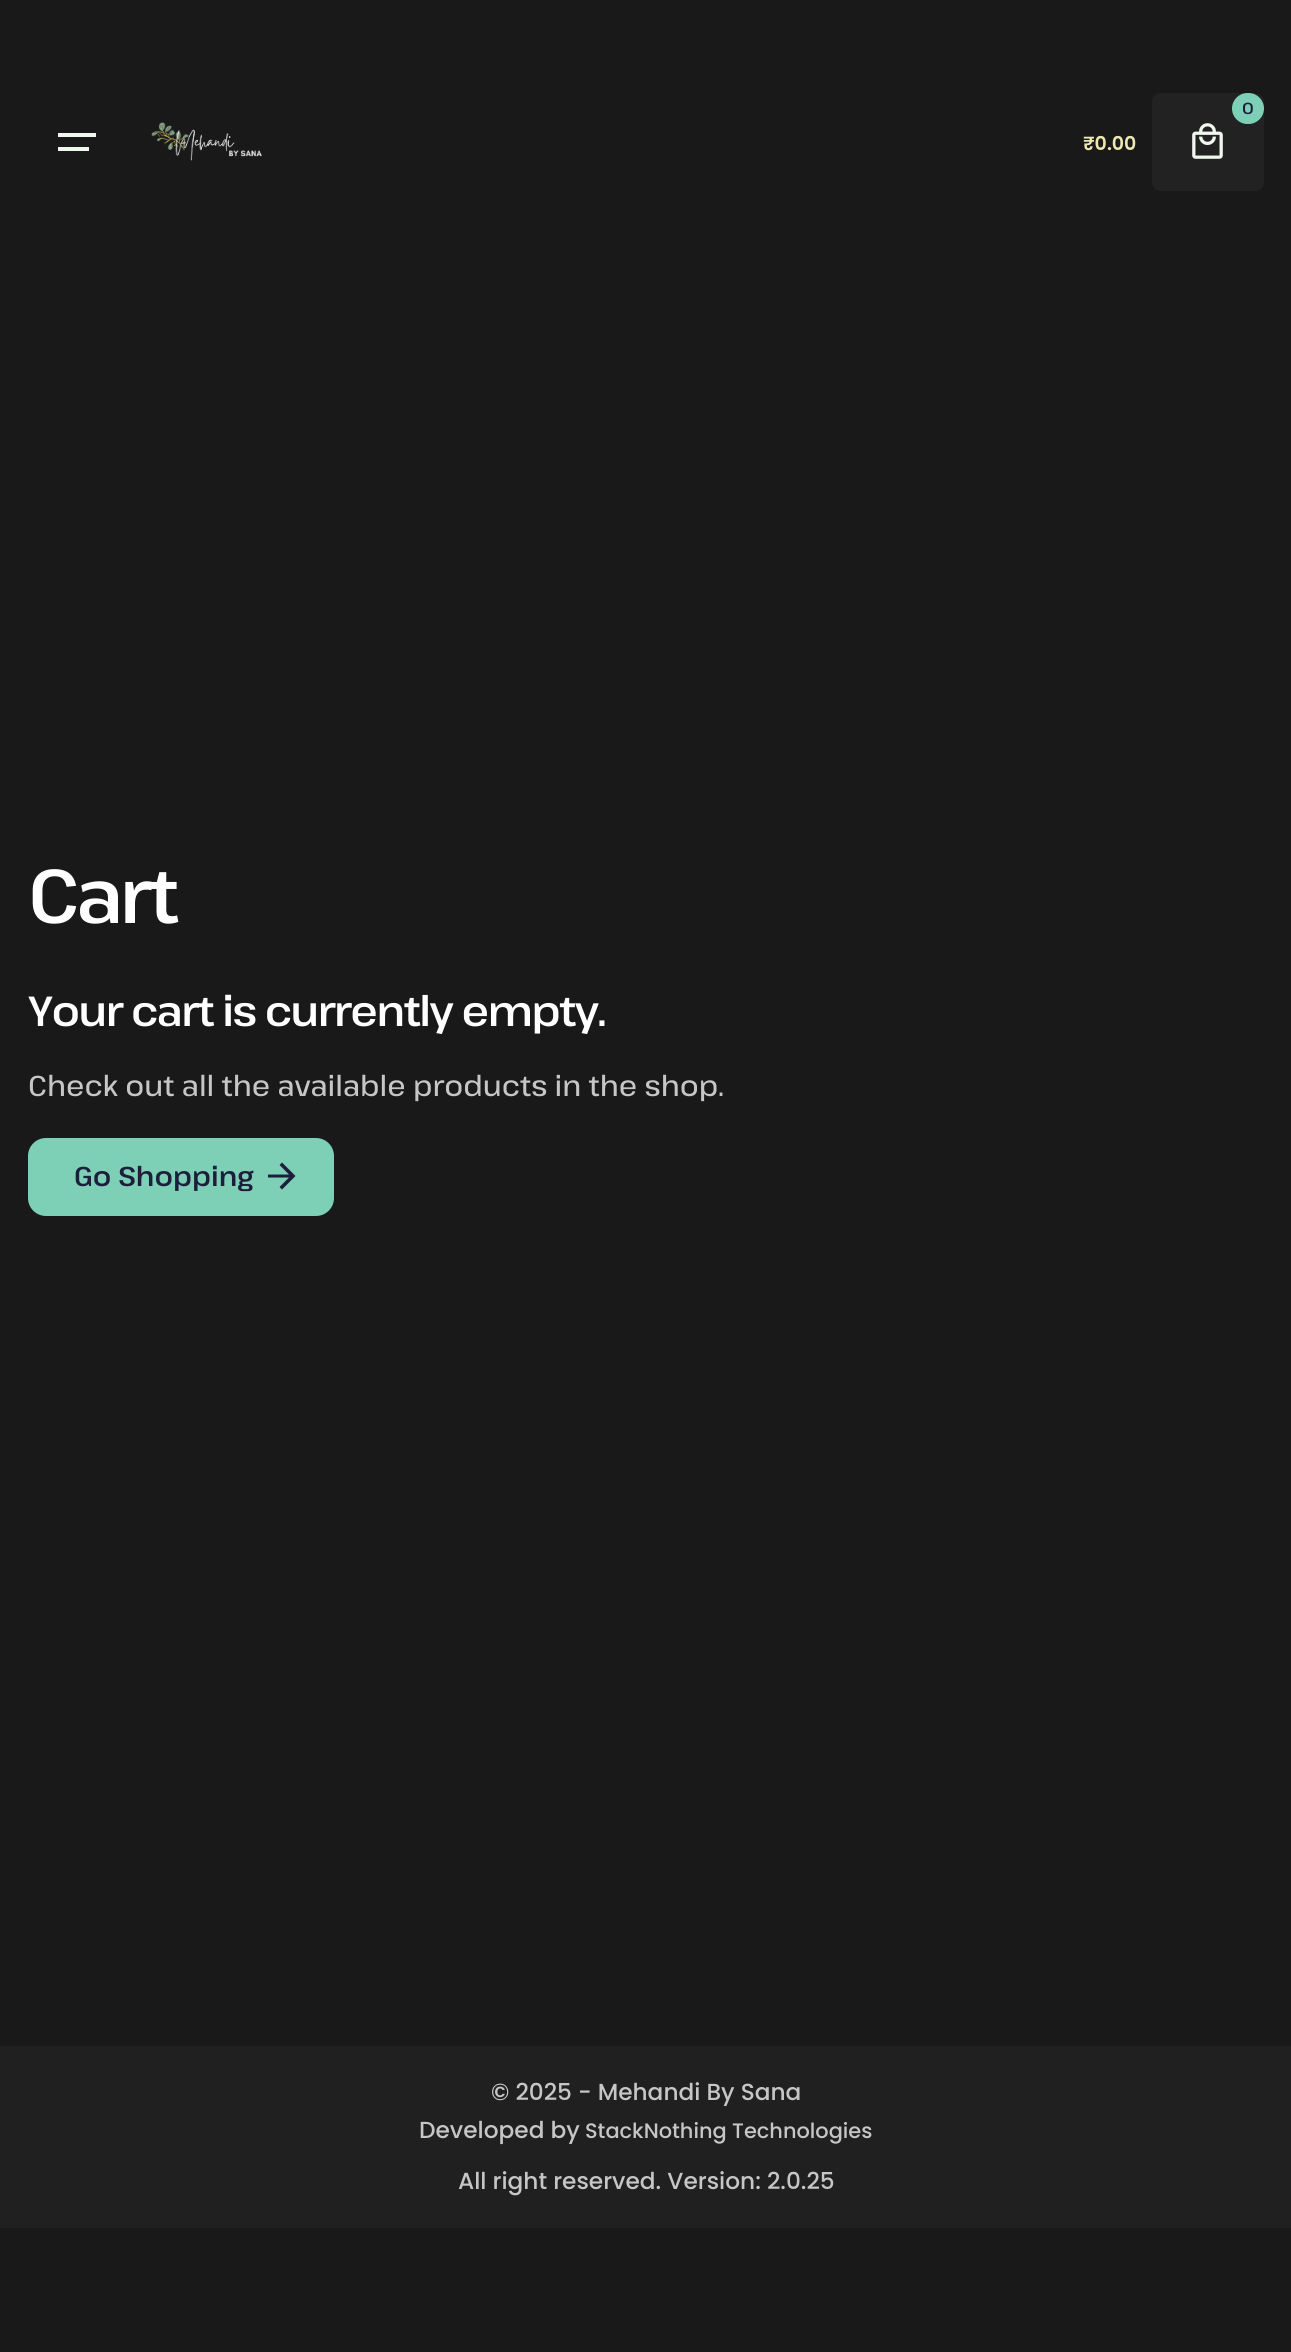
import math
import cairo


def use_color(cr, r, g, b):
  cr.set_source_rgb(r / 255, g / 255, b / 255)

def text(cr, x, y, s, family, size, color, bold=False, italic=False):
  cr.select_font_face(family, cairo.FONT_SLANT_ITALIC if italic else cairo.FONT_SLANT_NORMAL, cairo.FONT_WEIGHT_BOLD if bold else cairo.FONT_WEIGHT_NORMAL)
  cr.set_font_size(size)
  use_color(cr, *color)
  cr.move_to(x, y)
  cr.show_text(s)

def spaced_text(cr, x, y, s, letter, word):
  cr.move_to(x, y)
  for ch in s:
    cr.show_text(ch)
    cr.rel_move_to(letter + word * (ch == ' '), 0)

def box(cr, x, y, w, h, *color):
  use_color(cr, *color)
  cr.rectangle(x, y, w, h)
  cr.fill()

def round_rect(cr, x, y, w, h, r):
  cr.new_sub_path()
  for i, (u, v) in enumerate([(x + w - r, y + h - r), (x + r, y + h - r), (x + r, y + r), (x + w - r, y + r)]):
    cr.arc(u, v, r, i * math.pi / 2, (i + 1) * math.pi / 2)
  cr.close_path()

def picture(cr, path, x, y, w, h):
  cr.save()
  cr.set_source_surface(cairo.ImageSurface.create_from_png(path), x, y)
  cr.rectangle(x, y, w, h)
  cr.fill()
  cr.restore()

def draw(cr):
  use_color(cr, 25, 25, 25)
  cr.paint()
  box(cr, 58, 133, 38, 4, 240, 247, 238)
  box(cr, 58, 147, 31, 4, 240, 247, 238)
  picture(cr, "img_01.png", 151, 122, 111, 39)
  use_color(cr, 34, 34, 34)
  round_rect(cr, 1152, 93, 112, 98, 9)
  cr.fill()
  picture(cr, "img_02.png", 1192, 123, 31, 36)
  use_color(cr, 125, 207, 182)
  round_rect(cr, 1232, 93, 32, 31, 15.5)
  cr.fill()
  round_rect(cr, 28, 1138, 306, 78, 18)
  cr.fill()
  use_color(cr, 27, 31, 59)
  cr.new_path()
  cr.move_to(289, 1177.5)
  cr.line_to(268, 1177.5)
  cr.line_to(268, 1174.5)
  cr.line_to(289, 1174.5)
  cr.line_to(279.5, 1165)
  cr.line_to(282, 1162.5)
  cr.line_to(295.5, 1176)
  cr.line_to(282, 1189.5)
  cr.line_to(279.5, 1187)
  cr.close_path()
  cr.fill()
  box(cr, 0, 2046, 1291, 182, 32, 32, 32)
  text(cr, 1242, 114, "0", "Pathway Extreme SemiBold", 16, (27, 31, 59))
  text(cr, 1083, 150, "₹0.00", "Poppins SemiBold", 19, (237, 231, 177))
  cr.select_font_face("Pathway Extreme SemiBold")
  cr.set_font_size(76)
  use_color(cr, 255, 255, 255)
  spaced_text(cr, 28, 923, "Cart", -3.5, 0)
  cr.set_font_size(42)
  spaced_text(cr, 28, 1026, "Your cart is currently empty.", -1.5, 0)
  text(cr, 28, 1096, "Check out all the available products in the shop.", "Pathway Extreme Medium", 28.7, (198, 198, 198))
  text(cr, 74, 1186, "Go Shopping", "Pathway Extreme SemiBold", 27.25, (27, 31, 59))
  text(cr, 491, 2100, "© 2025 - Mehandi By Sana", "Poppins Medium", 23.25, (198, 198, 198))
  text(cr, 419, 2138, "Developed by", "Poppins Medium", 23.25, (198, 198, 198))
  text(cr, 585, 2138, "StackNothing Technologies", "Poppins Medium", 20.9, (198, 198, 198))
  text(cr, 458, 2189, "All right reserved. Version: 2.0.25", "Poppins Medium", 23.25, (198, 198, 198))


surface = cairo.ImageSurface(cairo.FORMAT_RGB24, 1291, 2352)
cr = cairo.Context(surface)
options = cairo.FontOptions()
options.set_hint_metrics(cairo.HINT_METRICS_OFF)
options.set_hint_style(cairo.HINT_STYLE_NONE)
cr.set_font_options(options)
cr.set_miter_limit(4)
draw(cr)
surface.write_to_png("out.png")
